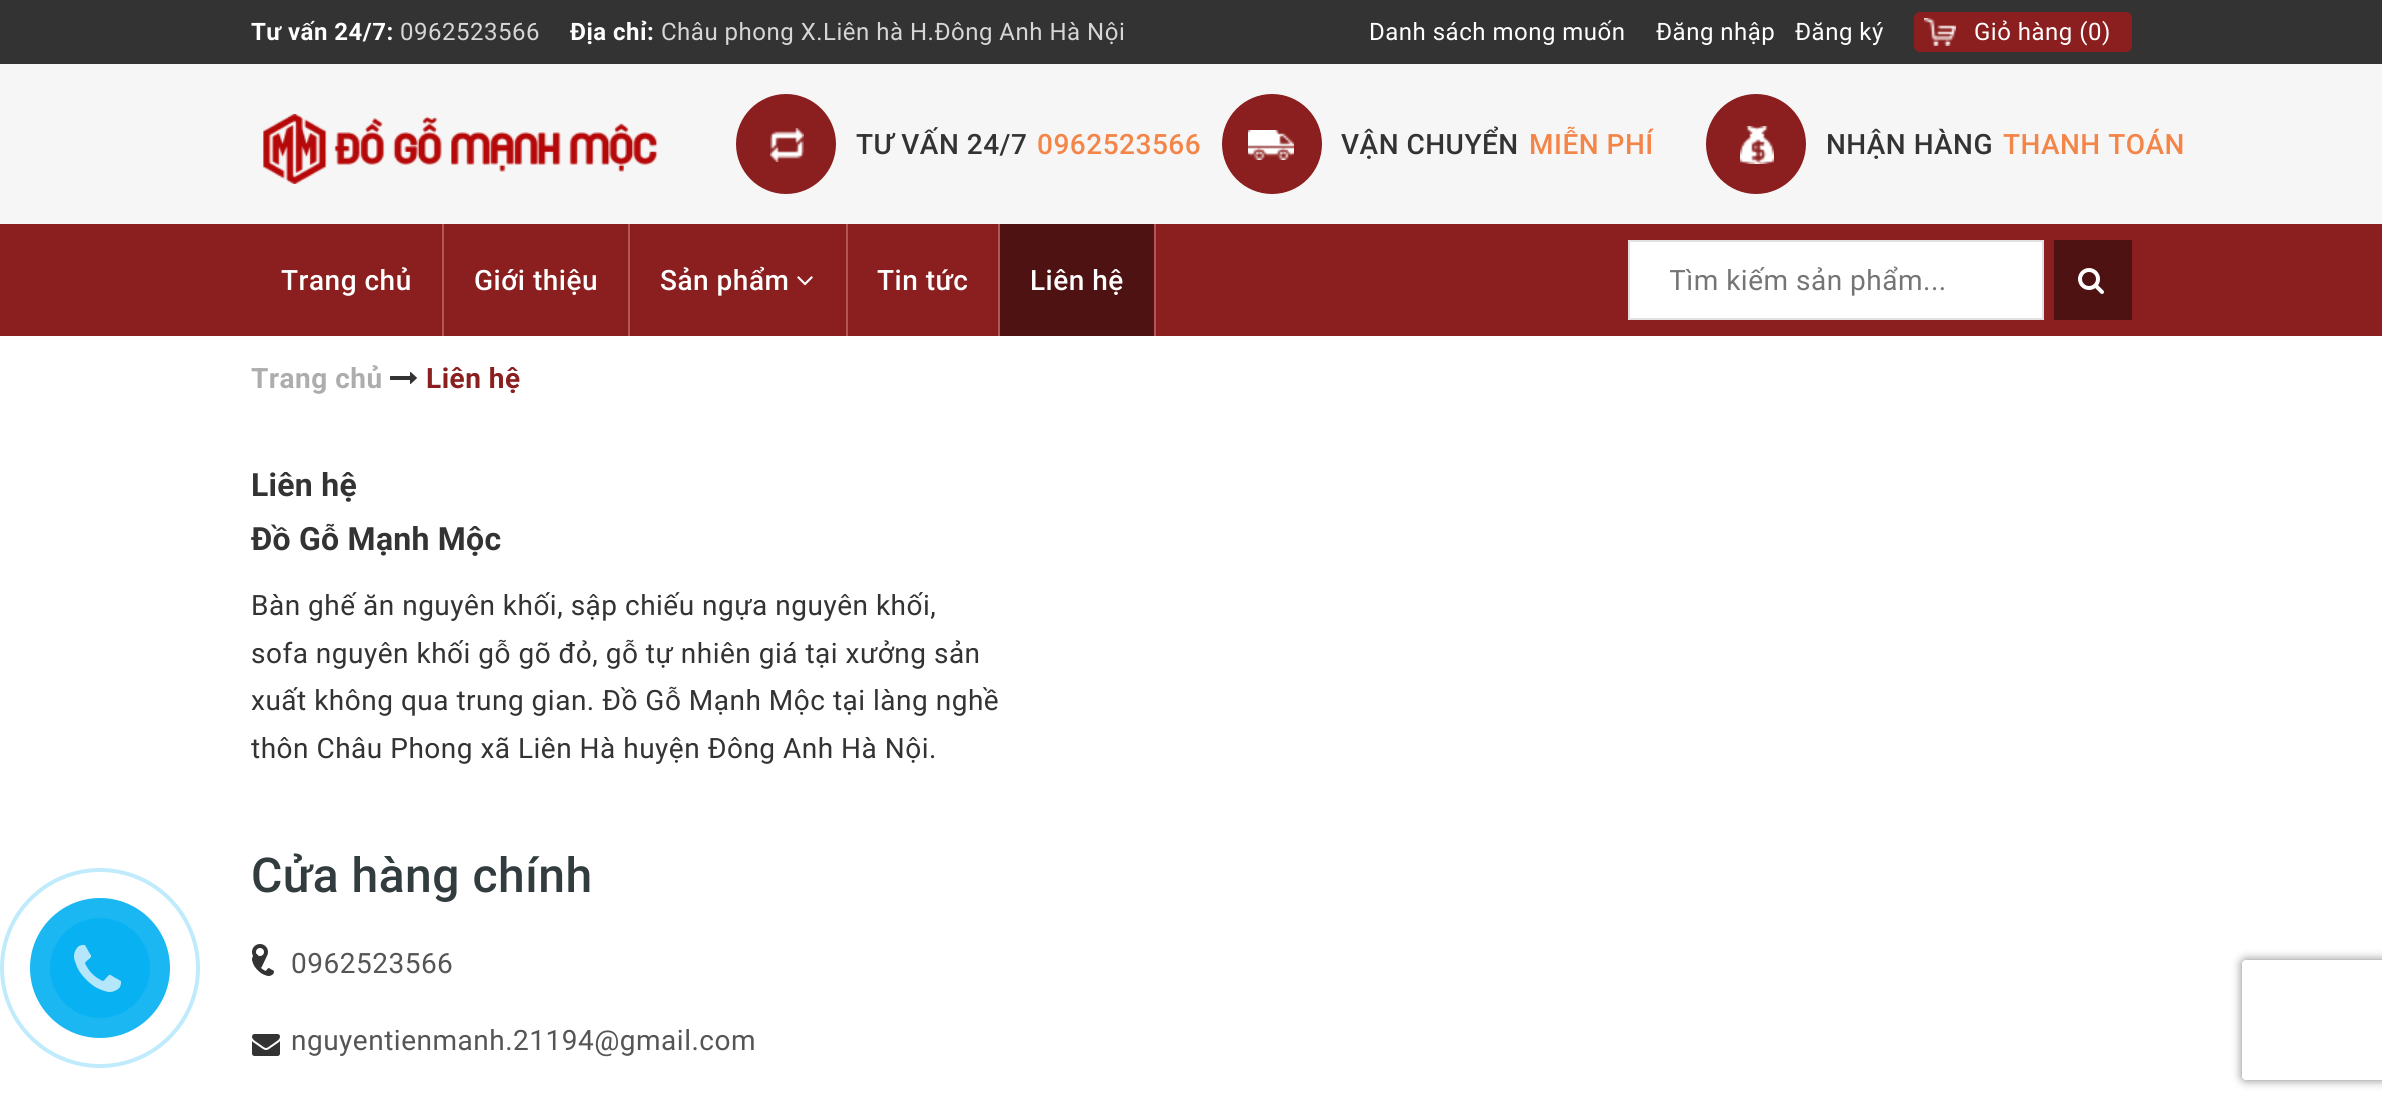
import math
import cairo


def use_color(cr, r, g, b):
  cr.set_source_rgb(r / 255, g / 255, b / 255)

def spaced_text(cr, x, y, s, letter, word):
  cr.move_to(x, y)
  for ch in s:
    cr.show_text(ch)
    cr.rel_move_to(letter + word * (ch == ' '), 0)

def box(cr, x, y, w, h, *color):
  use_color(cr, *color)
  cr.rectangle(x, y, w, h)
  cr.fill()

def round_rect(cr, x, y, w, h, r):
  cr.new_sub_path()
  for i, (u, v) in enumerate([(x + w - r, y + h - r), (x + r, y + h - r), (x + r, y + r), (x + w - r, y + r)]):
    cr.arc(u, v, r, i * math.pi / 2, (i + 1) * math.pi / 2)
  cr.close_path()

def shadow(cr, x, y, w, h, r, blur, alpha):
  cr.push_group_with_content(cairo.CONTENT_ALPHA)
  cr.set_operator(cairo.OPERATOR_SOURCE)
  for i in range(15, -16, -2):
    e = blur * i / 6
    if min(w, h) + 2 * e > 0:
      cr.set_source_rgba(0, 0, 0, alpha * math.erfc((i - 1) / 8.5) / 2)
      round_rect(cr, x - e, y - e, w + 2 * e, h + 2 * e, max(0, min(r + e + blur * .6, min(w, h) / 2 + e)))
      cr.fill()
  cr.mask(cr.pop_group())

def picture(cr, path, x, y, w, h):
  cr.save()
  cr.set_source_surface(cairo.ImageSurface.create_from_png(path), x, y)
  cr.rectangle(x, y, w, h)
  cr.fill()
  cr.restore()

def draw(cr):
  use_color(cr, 255, 255, 255)
  cr.paint()
  box(cr, 0, 64, 2382, 160, 246, 246, 246)
  box(cr, 0, 0, 2382, 64, 51, 51, 51)
  use_color(cr, 139, 30, 30)
  round_rect(cr, 1914, 12, 218, 40, 6)
  cr.fill()
  picture(cr, "img_01.png", 1924, 18, 32, 28)
  picture(cr, "img_02.png", 263, 114, 395, 70)
  cr.arc(786, 144, 50, 0, 2 * math.pi)
  cr.fill()
  picture(cr, "img_03.png", 770, 128, 34, 34)
  cr.arc(1272, 144, 50, 0, 2 * math.pi)
  cr.fill()
  picture(cr, "img_04.png", 1248, 130, 46, 30)
  cr.arc(1756, 144, 50, 0, 2 * math.pi)
  cr.fill()
  picture(cr, "img_05.png", 1740, 126, 34, 38)
  box(cr, 0, 224, 2382, 112, 139, 30, 30)
  box(cr, 442, 224, 2, 112, 180, 84, 84)
  box(cr, 628, 224, 2, 112, 180, 84, 84)
  box(cr, 846, 224, 2, 112, 180, 84, 84)
  picture(cr, "img_06.png", 797, 276, 16, 10)
  box(cr, 998, 224, 2, 112, 180, 84, 84)
  box(cr, 1000, 224, 154, 112, 79, 18, 18)
  box(cr, 1154, 224, 2, 112, 180, 84, 84)
  use_color(cr, 255, 255, 255)
  cr.rectangle(1629, 241, 414, 78)
  cr.fill_preserve()
  use_color(cr, 225, 225, 225)
  cr.stroke()
  box(cr, 2054, 240, 78, 80, 79, 18, 18)
  picture(cr, "img_07.png", 2078, 268, 26, 26)
  picture(cr, "img_08.png", 390, 372, 27, 12)
  cr.arc(100, 968, 98, 0, 2 * math.pi)
  use_color(cr, 191, 235, 252)
  cr.set_line_width(4)
  cr.stroke()
  use_color(cr, 26, 183, 243)
  cr.arc(100, 968, 70, 0, 2 * math.pi)
  cr.fill()
  use_color(cr, 8, 177, 242)
  cr.arc(100, 968, 50, 0, 2 * math.pi)
  cr.fill()
  picture(cr, "img_09.png", 74, 944, 48, 48)
  picture(cr, "img_10.png", 252, 944, 16, 24)
  picture(cr, "img_11.png", 252, 954, 22, 22)
  picture(cr, "img_12.png", 252, 1034, 28, 22)
  cr.save()
  cr.set_fill_rule(cairo.FILL_RULE_EVEN_ODD)
  cr.new_path()
  cr.move_to(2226, 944)
  cr.line_to(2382, 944)
  cr.line_to(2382, 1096)
  cr.line_to(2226, 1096)
  cr.close_path()
  cr.move_to(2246, 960)
  cr.line_to(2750, 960)
  cr.curve_to(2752, 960, 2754, 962, 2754, 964)
  cr.line_to(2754, 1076)
  cr.curve_to(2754, 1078, 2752, 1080, 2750, 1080)
  cr.line_to(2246, 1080)
  cr.curve_to(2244, 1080, 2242, 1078, 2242, 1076)
  cr.line_to(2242, 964)
  cr.curve_to(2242, 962, 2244, 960, 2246, 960)
  cr.close_path()
  cr.clip()
  use_color(cr, 128, 128, 128)
  shadow(cr, 2242, 960, 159, 120, 4, 5, 1)
  cr.restore()
  cr.select_font_face("Roboto", cairo.FONT_SLANT_NORMAL, cairo.FONT_WEIGHT_BOLD)
  cr.set_font_size(24)
  use_color(cr, 255, 255, 255)
  spaced_text(cr, 251, 40, "Tư vấn 24/7:", 0.5, 0)
  cr.select_font_face("Roboto")
  use_color(cr, 214, 214, 214)
  spaced_text(cr, 400, 40, "0962523566", 0.5, 0)
  cr.select_font_face("Roboto", cairo.FONT_SLANT_NORMAL, cairo.FONT_WEIGHT_BOLD)
  use_color(cr, 255, 255, 255)
  spaced_text(cr, 570, 40, "Địa chỉ:", 0.5, 0)
  cr.select_font_face("Roboto")
  use_color(cr, 214, 214, 214)
  spaced_text(cr, 661, 40, "Châu phong X.Liên hà H.Đông Anh Hà Nội", 0.5, 0)
  use_color(cr, 255, 255, 255)
  spaced_text(cr, 1369, 40, "Danh sách mong muốn", 0.5, 0)
  spaced_text(cr, 1656, 40, "Đăng nhập", 0.5, 0)
  spaced_text(cr, 1795, 40, "Đăng ký", 0.5, 0)
  spaced_text(cr, 1974, 40, "Giỏ hàng (0)", 0.5, 0)
  cr.select_font_face("Roboto Medium")
  cr.set_font_size(28)
  use_color(cr, 51, 51, 51)
  spaced_text(cr, 856, 154, "TƯ VẤN 24/7", 0.5, 0)
  use_color(cr, 244, 133, 73)
  spaced_text(cr, 1037, 154, "0962523566", 0.5, 0)
  use_color(cr, 51, 51, 51)
  spaced_text(cr, 1341, 154, "VẬN CHUYỂN", 0.5, 0)
  use_color(cr, 244, 133, 73)
  spaced_text(cr, 1529, 154, "MIỄN PHÍ", 0.5, 0)
  use_color(cr, 51, 51, 51)
  spaced_text(cr, 1826, 154, "NHẬN HÀNG", 0.5, 0)
  use_color(cr, 244, 133, 73)
  spaced_text(cr, 2003, 154, "THANH TOÁN", 0.5, 0)
  use_color(cr, 255, 255, 255)
  spaced_text(cr, 281, 290, "Trang chủ", 0.5, 0)
  spaced_text(cr, 474, 290, "Giới thiệu", 0.5, 0)
  spaced_text(cr, 660, 290, "Sản phẩm", 0.5, 0)
  spaced_text(cr, 877, 290, "Tin tức", 0.5, 0)
  spaced_text(cr, 1030, 290, "Liên hệ", 0.5, 0)
  cr.save()
  cr.rectangle(1670, 264, 324, 32)
  cr.clip()
  cr.select_font_face("Roboto")
  use_color(cr, 117, 117, 117)
  spaced_text(cr, 1669, 290, "Tìm kiếm sản phẩm...", 0.5, 0)
  cr.restore()
  cr.select_font_face("Roboto", cairo.FONT_SLANT_NORMAL, cairo.FONT_WEIGHT_BOLD)
  use_color(cr, 173, 173, 173)
  spaced_text(cr, 251, 388, "Trang chủ", 0.5, 0)
  use_color(cr, 139, 30, 30)
  spaced_text(cr, 426, 388, "Liên hệ", 0.5, 0)
  cr.set_font_size(32)
  use_color(cr, 51, 51, 51)
  spaced_text(cr, 251, 496, "Liên hệ", 0.25, 0)
  spaced_text(cr, 251, 550, "Đồ Gỗ Mạnh Mộc", 0.25, 0)
  cr.select_font_face("Roboto")
  cr.set_font_size(28)
  spaced_text(cr, 251, 615, "Bàn ghế ăn nguyên khối, sập chiếu ngựa nguyên khối,", 0.5, 0)
  spaced_text(cr, 251, 663, "sofa nguyên khối gỗ gõ đỏ, gỗ tự nhiên giá tại xưởng sản", 0.5, 0)
  spaced_text(cr, 251, 710, "xuất không qua trung gian. Đồ Gỗ Mạnh Mộc tại làng nghề", 0.5, 0)
  spaced_text(cr, 251, 758, "thôn Châu Phong xã Liên Hà huyện Đông Anh Hà Nội.", 0.5, 0)
  cr.select_font_face("Roboto Medium")
  cr.set_font_size(48)
  use_color(cr, 50, 60, 63)
  spaced_text(cr, 251, 892, "Cửa hàng chính", 0.5, 0)
  cr.select_font_face("Roboto")
  cr.set_font_size(28)
  use_color(cr, 87, 84, 84)
  spaced_text(cr, 291, 973, "0962523566", 0.5, 0)
  spaced_text(cr, 291, 1050, "nguyentienmanh.21194@gmail.com", 0.5, 0)


surface = cairo.ImageSurface(cairo.FORMAT_RGB24, 2382, 1107)
cr = cairo.Context(surface)
options = cairo.FontOptions()
options.set_hint_metrics(cairo.HINT_METRICS_OFF)
options.set_hint_style(cairo.HINT_STYLE_NONE)
cr.set_font_options(options)
cr.set_miter_limit(4)
draw(cr)
surface.write_to_png("out.png")
